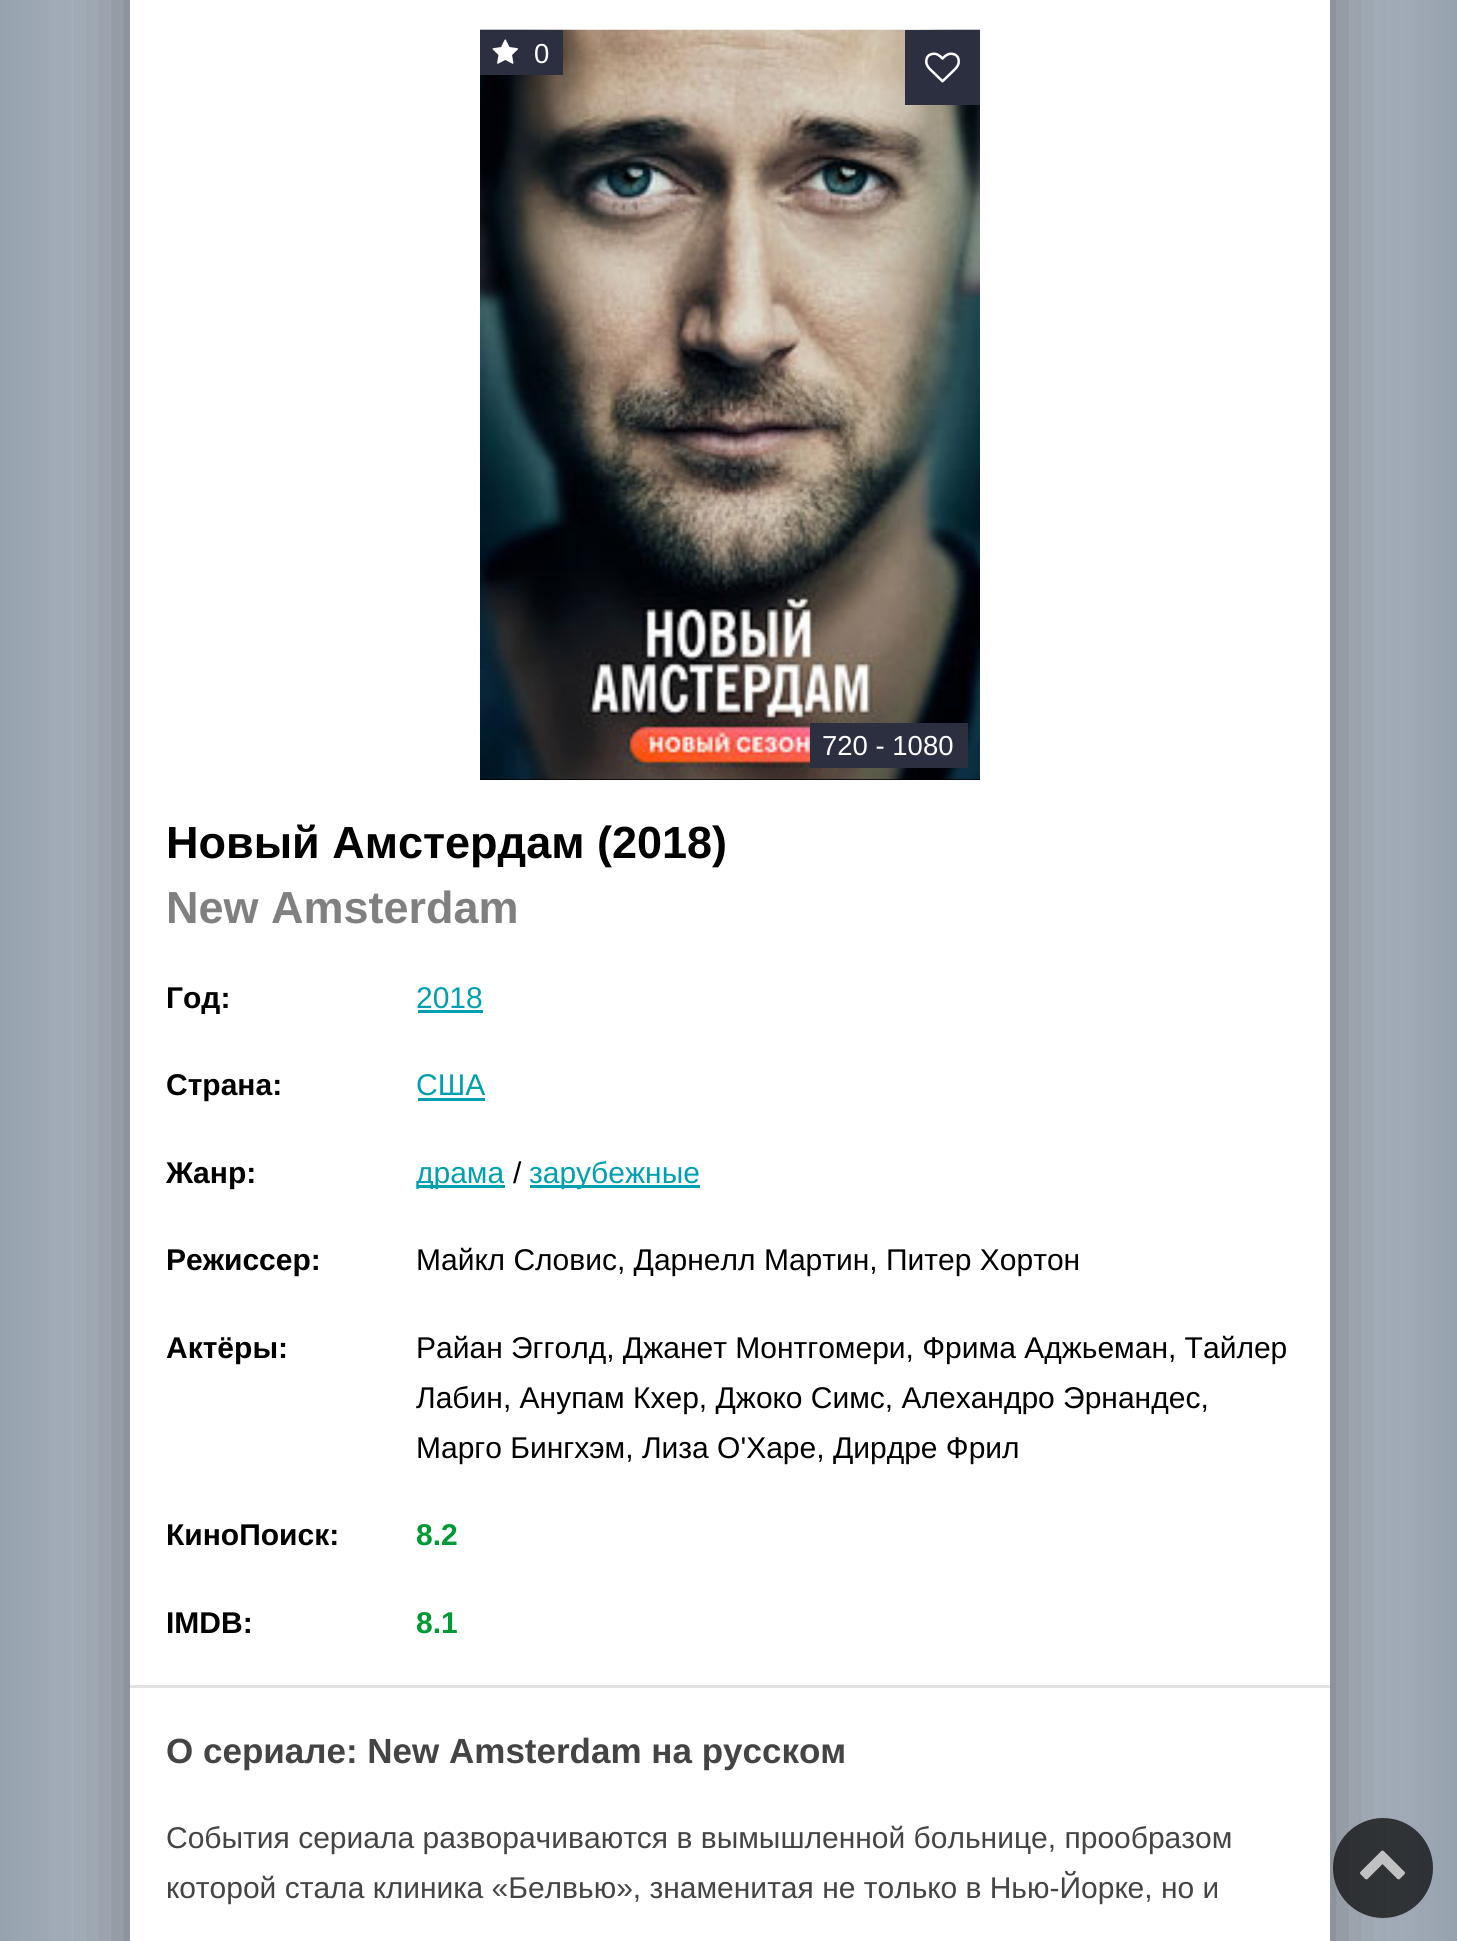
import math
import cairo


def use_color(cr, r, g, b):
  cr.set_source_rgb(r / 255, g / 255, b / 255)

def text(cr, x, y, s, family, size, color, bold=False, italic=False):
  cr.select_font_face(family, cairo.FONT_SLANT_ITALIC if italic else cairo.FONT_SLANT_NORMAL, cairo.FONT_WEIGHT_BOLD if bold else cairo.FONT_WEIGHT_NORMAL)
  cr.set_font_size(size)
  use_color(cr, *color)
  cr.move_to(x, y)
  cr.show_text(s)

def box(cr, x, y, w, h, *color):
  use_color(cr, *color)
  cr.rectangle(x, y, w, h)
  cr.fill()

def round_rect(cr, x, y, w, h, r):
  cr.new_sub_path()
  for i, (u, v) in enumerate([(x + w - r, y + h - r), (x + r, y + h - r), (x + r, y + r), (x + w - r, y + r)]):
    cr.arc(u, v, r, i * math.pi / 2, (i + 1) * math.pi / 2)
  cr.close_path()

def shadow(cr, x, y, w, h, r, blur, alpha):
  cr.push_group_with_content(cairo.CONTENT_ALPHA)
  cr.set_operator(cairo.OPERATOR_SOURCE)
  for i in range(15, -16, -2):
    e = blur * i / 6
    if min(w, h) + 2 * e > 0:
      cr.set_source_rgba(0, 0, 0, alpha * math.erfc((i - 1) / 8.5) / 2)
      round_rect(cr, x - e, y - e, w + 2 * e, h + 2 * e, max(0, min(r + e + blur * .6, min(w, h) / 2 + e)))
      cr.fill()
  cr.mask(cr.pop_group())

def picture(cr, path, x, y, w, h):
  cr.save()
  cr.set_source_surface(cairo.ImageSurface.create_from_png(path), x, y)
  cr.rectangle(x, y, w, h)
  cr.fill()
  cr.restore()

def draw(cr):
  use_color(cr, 255, 255, 255)
  cr.paint()
  gradient = cairo.LinearGradient(0, 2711, 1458, 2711)
  gradient.add_color_stop_rgba(0, 0.588, 0.631, 0.682, 1)
  gradient.add_color_stop_rgba(0.3, 0.941, 0.953, 0.973, 1)
  gradient.add_color_stop_rgba(0.7, 0.941, 0.953, 0.973, 1)
  gradient.add_color_stop_rgba(1, 0.588, 0.631, 0.682, 1)
  cr.set_source(gradient)
  cr.rectangle(0, 0, 1457, 1941)
  cr.fill()
  use_color(cr, 0, 0, 0)
  shadow(cr, 130, -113, 1200, 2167, 0, 37.5, 0.4)
  box(cr, 130, 0, 1200, 1941, 255, 255, 255)
  box(cr, 130, 1685, 1200, 3, 227, 227, 227)
  box(cr, 480, 779, 500, 1, 0, 0, 0)
  picture(cr, "img_01.png", 480, 29, 500, 751)
  box(cr, 480, 30, 83, 45, 44, 47, 64)
  picture(cr, "img_02.png", 492, 39, 26, 25)
  box(cr, 905, 30, 75, 75, 44, 47, 64)
  picture(cr, "img_03.png", 925, 52, 35, 31)
  box(cr, 810, 723, 158, 45, 44, 47, 64)
  box(cr, 418, 1010, 65, 3, 0, 160, 176)
  box(cr, 418, 1098, 67, 3, 0, 160, 176)
  box(cr, 418, 1185, 87, 3, 0, 160, 176)
  box(cr, 530, 1185, 170, 3, 0, 160, 176)
  cr.set_source_rgba(0, 0, 0, 0.7)
  cr.arc(1383, 1868, 50, 0, 2 * math.pi)
  cr.fill()
  picture(cr, "img_04.png", 1360, 1850, 45, 30)
  text(cr, 534, 63, "0", "Liberation Sans", 27.5, (255, 255, 255))
  text(cr, 822, 755, "720 - 1080", "Liberation Sans", 27.5, (255, 255, 255))
  text(cr, 166, 858, "Новый Амстердам (2018)", "Liberation Sans", 45, (0, 0, 0), bold=True)
  text(cr, 166, 923, "New Amsterdam", "Liberation Sans", 45, (128, 128, 128), bold=True)
  text(cr, 166, 1008, "Год:", "Liberation Sans", 30, (0, 0, 0), bold=True)
  text(cr, 416, 1008, "2018", "Liberation Sans", 30, (0, 160, 176))
  text(cr, 166, 1095, "Страна:", "Liberation Sans", 30, (0, 0, 0), bold=True)
  text(cr, 416, 1095, "США", "Liberation Sans", 30, (0, 160, 176))
  text(cr, 166, 1183, "Жанр:", "Liberation Sans", 30, (0, 0, 0), bold=True)
  text(cr, 416, 1183, "драма", "Liberation Sans", 30, (0, 160, 176))
  text(cr, 513, 1183, "/", "Liberation Sans", 30, (0, 0, 0))
  text(cr, 529, 1183, "зарубежные", "Liberation Sans", 30, (0, 160, 176))
  text(cr, 166, 1270, "Режиссер:", "Liberation Sans", 30, (0, 0, 0), bold=True)
  text(cr, 416, 1270, "Майкл Словис, Дарнелл Мартин, Питер Хортон", "Liberation Sans", 30, (0, 0, 0))
  text(cr, 166, 1358, "Актёры:", "Liberation Sans", 30, (0, 0, 0), bold=True)
  text(cr, 416, 1358, "Райан Эгголд, Джанет Монтгомери, Фрима Аджьеман, Тайлер", "Liberation Sans", 30, (0, 0, 0))
  text(cr, 416, 1408, "Лабин, Анупам Кхер, Джоко Симс, Алехандро Эрнандес,", "Liberation Sans", 30, (0, 0, 0))
  text(cr, 416, 1458, "Марго Бингхэм, Лиза О'Харе, Дирдре Фрил", "Liberation Sans", 30, (0, 0, 0))
  text(cr, 166, 1545, "КиноПоиск:", "Liberation Sans", 30, (0, 0, 0), bold=True)
  text(cr, 416, 1545, "8.2", "Liberation Sans", 30, (0, 153, 51), bold=True)
  text(cr, 166, 1633, "IMDB:", "Liberation Sans", 30, (0, 0, 0), bold=True)
  text(cr, 416, 1633, "8.1", "Liberation Sans", 30, (0, 153, 51), bold=True)
  text(cr, 166, 1763, "О сериале: New Amsterdam на русском", "Liberation Sans", 35, (68, 68, 68), bold=True)
  text(cr, 166, 1848, "События сериала разворачиваются в вымышленной больнице, прообразом", "Liberation Sans", 30, (68, 68, 68))
  text(cr, 166, 1898, "которой стала клиника «Белвью», знаменитая не только в Нью-Йорке, но и", "Liberation Sans", 30, (68, 68, 68))


surface = cairo.ImageSurface(cairo.FORMAT_RGB24, 1457, 1941)
cr = cairo.Context(surface)
options = cairo.FontOptions()
options.set_hint_metrics(cairo.HINT_METRICS_OFF)
options.set_hint_style(cairo.HINT_STYLE_NONE)
cr.set_font_options(options)
cr.set_miter_limit(4)
draw(cr)
surface.write_to_png("out.png")
